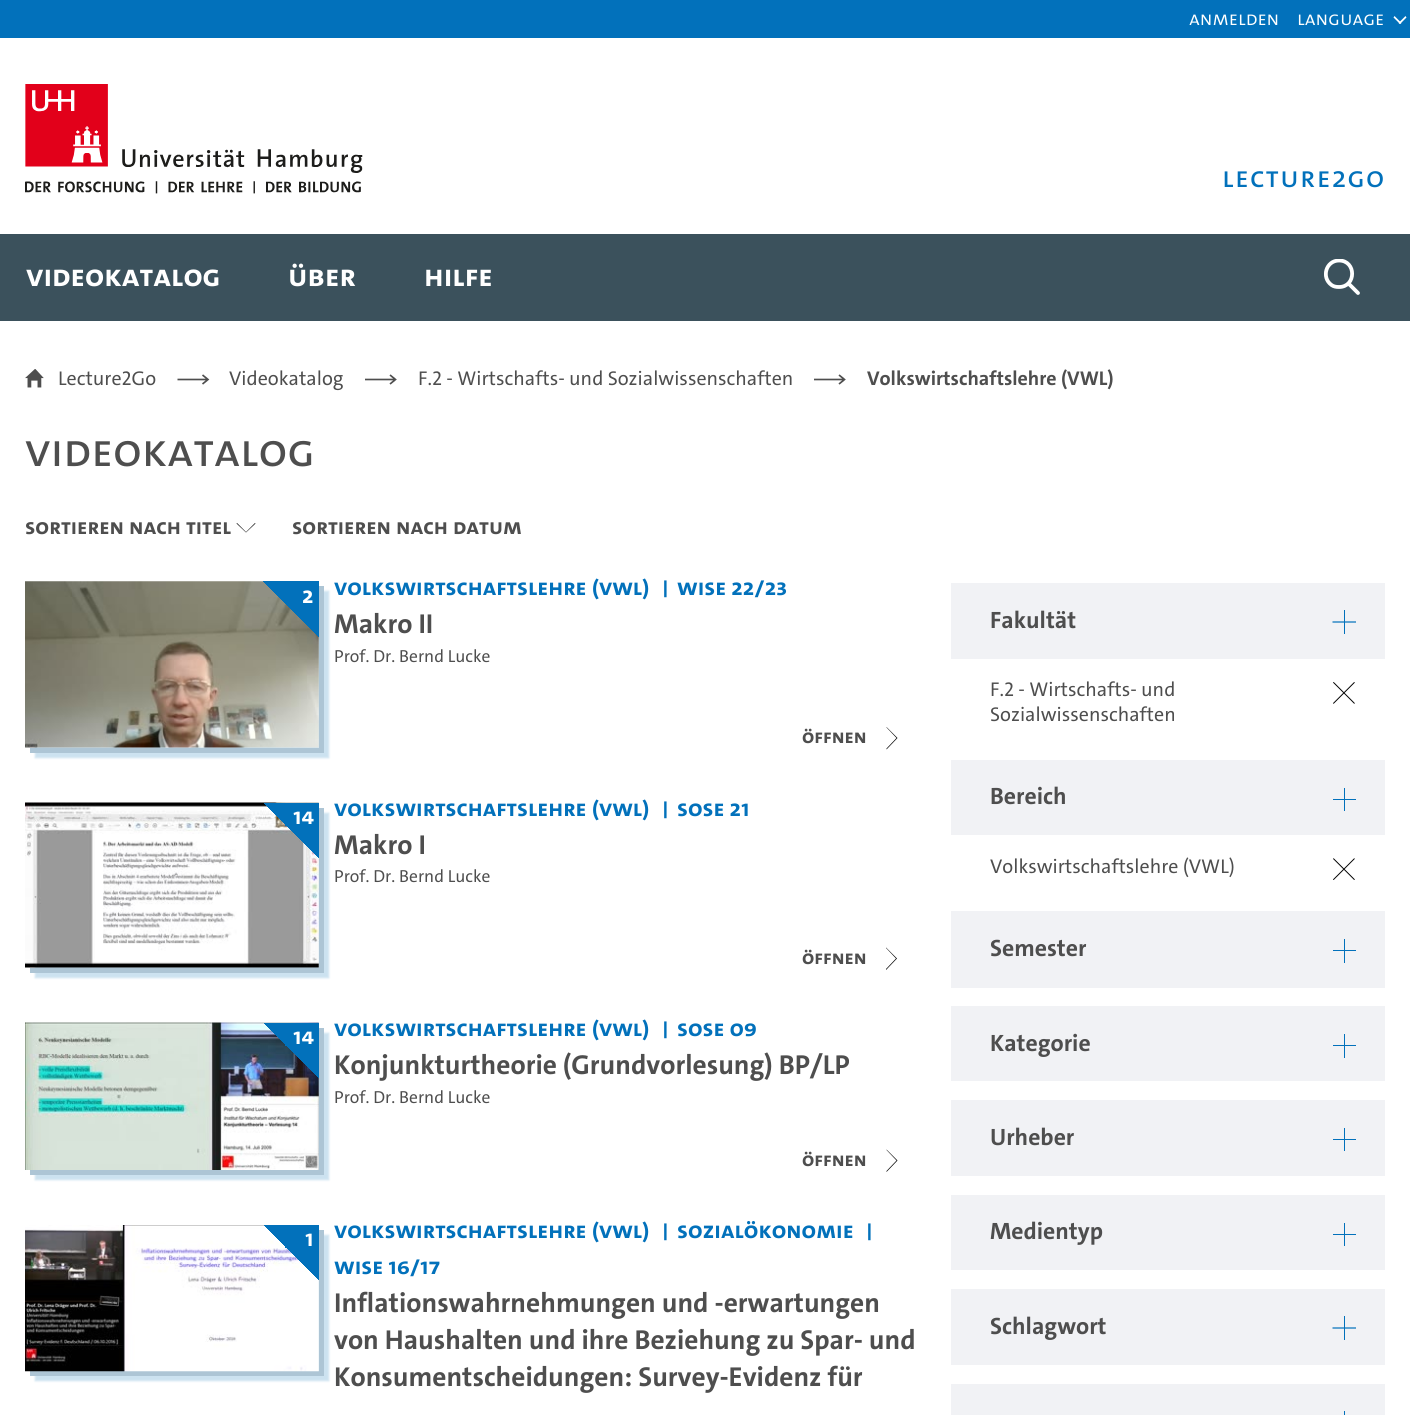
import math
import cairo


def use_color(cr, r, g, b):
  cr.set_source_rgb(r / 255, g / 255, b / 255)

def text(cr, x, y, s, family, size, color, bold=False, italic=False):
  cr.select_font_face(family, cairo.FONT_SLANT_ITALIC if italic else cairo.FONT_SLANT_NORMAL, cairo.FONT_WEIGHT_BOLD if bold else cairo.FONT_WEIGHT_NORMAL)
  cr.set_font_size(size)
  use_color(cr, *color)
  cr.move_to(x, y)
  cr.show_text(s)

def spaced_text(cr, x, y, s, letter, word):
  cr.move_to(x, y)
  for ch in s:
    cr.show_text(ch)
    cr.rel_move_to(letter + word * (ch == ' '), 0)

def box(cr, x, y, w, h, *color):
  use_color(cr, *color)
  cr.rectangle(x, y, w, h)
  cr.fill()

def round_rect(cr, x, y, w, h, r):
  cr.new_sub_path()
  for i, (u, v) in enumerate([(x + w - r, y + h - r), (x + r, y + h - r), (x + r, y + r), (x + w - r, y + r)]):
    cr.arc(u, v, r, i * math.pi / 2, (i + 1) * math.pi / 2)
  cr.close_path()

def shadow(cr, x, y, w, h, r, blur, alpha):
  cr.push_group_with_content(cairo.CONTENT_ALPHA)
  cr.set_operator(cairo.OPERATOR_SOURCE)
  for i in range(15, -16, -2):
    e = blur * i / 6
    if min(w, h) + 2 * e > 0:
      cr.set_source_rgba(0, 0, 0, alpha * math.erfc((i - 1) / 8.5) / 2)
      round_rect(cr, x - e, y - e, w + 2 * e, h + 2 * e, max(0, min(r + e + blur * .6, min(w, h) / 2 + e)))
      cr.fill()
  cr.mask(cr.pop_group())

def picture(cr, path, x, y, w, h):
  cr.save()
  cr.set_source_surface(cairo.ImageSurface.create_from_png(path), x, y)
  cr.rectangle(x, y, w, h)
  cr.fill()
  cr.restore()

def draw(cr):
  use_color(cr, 255, 255, 255)
  cr.paint()
  box(cr, 0, 0, 1410, 38, 2, 113, 187)
  use_color(cr, 255, 255, 255)
  cr.new_path()
  cr.move_to(1405.5, 16)
  cr.line_to(1406.5, 17.5)
  cr.line_to(1400, 24)
  cr.line_to(1398.5, 23)
  cr.close_path()
  cr.fill()
  cr.new_path()
  cr.move_to(1394.5, 16)
  cr.line_to(1401.5, 23)
  cr.line_to(1400, 24)
  cr.line_to(1393.5, 17.5)
  cr.close_path()
  cr.fill()
  picture(cr, "img_01.png", 25, 84, 338, 110)
  box(cr, 0, 234, 1410, 87, 59, 81, 92)
  cr.save()
  cr.rectangle(1324, 259, 36, 36)
  cr.clip()
  cr.new_path()
  cr.move_to(1339, 287)
  cr.curve_to(1356.5, 287, 1356.5, 260.5, 1339, 260.5)
  cr.curve_to(1326, 260.5, 1321, 277.5, 1331.5, 285)
  cr.curve_to(1333.5, 286.5, 1336, 287, 1339, 287)
  cr.close_path()
  cr.move_to(1348.5, 283.5)
  cr.line_to(1358, 293)
  use_color(cr, 255, 255, 255)
  cr.set_line_width(3.8)
  cr.set_line_cap(cairo.LINE_CAP_ROUND)
  cr.stroke()
  cr.restore()
  picture(cr, "img_02.png", 25, 369, 19, 19)
  cr.new_path()
  cr.move_to(177.5, 379.5)
  cr.line_to(207.5, 379.5)
  cr.move_to(202.5, 375)
  cr.line_to(208, 379.5)
  cr.line_to(202.5, 384)
  use_color(cr, 78, 78, 78)
  cr.set_line_width(1.7)
  cr.stroke()
  cr.new_path()
  cr.move_to(365, 379.5)
  cr.line_to(395, 379.5)
  cr.move_to(390, 375)
  cr.line_to(395.5, 379.5)
  cr.line_to(390, 384)
  cr.stroke()
  cr.new_path()
  cr.move_to(814, 379.5)
  cr.line_to(843.5, 379.5)
  cr.move_to(839, 375)
  cr.line_to(844.5, 379.5)
  cr.line_to(839, 384)
  cr.stroke()
  use_color(cr, 1, 1, 1)
  cr.new_path()
  cr.move_to(237, 523)
  cr.line_to(246, 532)
  cr.line_to(255, 523)
  cr.line_to(255.5, 523.5)
  cr.line_to(246, 532.5)
  cr.line_to(236.5, 523.5)
  cr.close_path()
  cr.fill()
  use_color(cr, 204, 226, 240)
  shadow(cr, 35, 591, 294, 167, 0, 1, 1)
  use_color(cr, 173, 197, 213)
  cr.new_path()
  cr.move_to(30, 748)
  cr.line_to(30, 753)
  cr.line_to(324, 753)
  cr.line_to(324, 586)
  cr.line_to(319, 586)
  cr.line_to(319, 748)
  cr.close_path()
  cr.fill()
  picture(cr, "img_03.png", 25, 581, 294, 167)
  gradient = cairo.LinearGradient(263, 638, 319, 581)
  gradient.add_color_stop_rgba(0, 0, 0, 0, 0)
  gradient.add_color_stop_rgba(0.5, 0.008, 0.443, 0.733, 0)
  gradient.add_color_stop_rgba(0.5, 0.008, 0.443, 0.733, 1)
  gradient.add_color_stop_rgba(1, 0.008, 0.443, 0.733, 1)
  cr.set_source(gradient)
  cr.rectangle(263, 581, 56, 56)
  cr.fill()
  use_color(cr, 1, 1, 1)
  cr.new_path()
  cr.move_to(886.5, 748.5)
  cr.line_to(896.5, 738)
  cr.line_to(886.5, 727.5)
  cr.line_to(886.5, 727)
  cr.line_to(897.5, 738)
  cr.line_to(886.5, 749.5)
  cr.close_path()
  cr.fill()
  use_color(cr, 204, 226, 240)
  shadow(cr, 35, 813, 294, 165, 0, 1, 1)
  use_color(cr, 173, 197, 213)
  cr.new_path()
  cr.move_to(30, 968)
  cr.line_to(30, 973)
  cr.line_to(324, 973)
  cr.line_to(324, 808)
  cr.line_to(319, 808)
  cr.line_to(319, 968)
  cr.close_path()
  cr.fill()
  picture(cr, "img_04.png", 25, 802, 294, 166)
  gradient = cairo.LinearGradient(263, 859, 319, 803)
  gradient.add_color_stop_rgba(0, 0, 0, 0, 0)
  gradient.add_color_stop_rgba(0.5, 0.008, 0.443, 0.733, 0)
  gradient.add_color_stop_rgba(0.5, 0.008, 0.443, 0.733, 1)
  gradient.add_color_stop_rgba(1, 0.008, 0.443, 0.733, 1)
  cr.set_source(gradient)
  cr.rectangle(264, 803, 55, 55)
  cr.fill()
  use_color(cr, 1, 1, 1)
  cr.new_path()
  cr.move_to(886, 969)
  cr.line_to(896, 958.5)
  cr.line_to(886, 948)
  cr.line_to(886, 947.5)
  cr.line_to(897, 958.5)
  cr.line_to(886, 970)
  cr.close_path()
  cr.fill()
  use_color(cr, 204, 226, 240)
  shadow(cr, 35, 1033, 294, 147, 0, 1, 1)
  use_color(cr, 173, 197, 213)
  cr.new_path()
  cr.move_to(30, 1170)
  cr.line_to(30, 1175)
  cr.line_to(324, 1175)
  cr.line_to(324, 1028)
  cr.line_to(319, 1028)
  cr.line_to(319, 1170)
  cr.close_path()
  cr.fill()
  picture(cr, "img_05.png", 25, 1022, 294, 148)
  gradient = cairo.LinearGradient(263, 1079, 319, 1023)
  gradient.add_color_stop_rgba(0, 0, 0, 0, 0)
  gradient.add_color_stop_rgba(0.5, 0.008, 0.443, 0.733, 0)
  gradient.add_color_stop_rgba(0.5, 0.008, 0.443, 0.733, 1)
  gradient.add_color_stop_rgba(1, 0.008, 0.443, 0.733, 1)
  cr.set_source(gradient)
  cr.rectangle(264, 1023, 55, 55)
  cr.fill()
  use_color(cr, 1, 1, 1)
  cr.new_path()
  cr.move_to(886.5, 1171)
  cr.line_to(896.5, 1160.5)
  cr.line_to(886.5, 1150)
  cr.line_to(886.5, 1149.5)
  cr.line_to(897.5, 1160.5)
  cr.line_to(886.5, 1172)
  cr.close_path()
  cr.fill()
  use_color(cr, 204, 226, 240)
  shadow(cr, 35, 1235, 294, 146, 0, 1, 1)
  use_color(cr, 173, 197, 213)
  cr.new_path()
  cr.move_to(30, 1371)
  cr.line_to(30, 1376)
  cr.line_to(324, 1376)
  cr.line_to(324, 1230)
  cr.line_to(319, 1230)
  cr.line_to(319, 1371)
  cr.close_path()
  cr.fill()
  picture(cr, "img_06.png", 25, 1225, 294, 147)
  gradient = cairo.LinearGradient(263, 1281, 319, 1225)
  gradient.add_color_stop_rgba(0, 0, 0, 0, 0)
  gradient.add_color_stop_rgba(0.5, 0.008, 0.443, 0.733, 0)
  gradient.add_color_stop_rgba(0.5, 0.008, 0.443, 0.733, 1)
  gradient.add_color_stop_rgba(1, 0.008, 0.443, 0.733, 1)
  cr.set_source(gradient)
  cr.rectangle(264, 1225, 55, 55)
  cr.fill()
  box(cr, 951, 583, 434, 76, 241, 242, 245)
  cr.new_path()
  cr.move_to(1332.5, 622)
  cr.line_to(1356, 622)
  use_color(cr, 2, 113, 187)
  cr.set_line_width(1.2)
  cr.stroke()
  box(cr, 1344, 610, 1, 24, 2, 113, 187)
  picture(cr, "img_07.png", 1333, 682, 22, 22)
  box(cr, 951, 760, 434, 75, 241, 242, 245)
  box(cr, 1333, 799, 23, 1, 2, 113, 187)
  box(cr, 1344, 788, 1, 23, 2, 113, 187)
  picture(cr, "img_08.png", 1333, 858, 22, 22)
  box(cr, 951, 911, 434, 77, 241, 242, 245)
  box(cr, 1333, 950, 23, 1, 2, 113, 187)
  box(cr, 1344, 939, 1, 24, 2, 113, 187)
  box(cr, 951, 1006, 434, 75, 241, 242, 245)
  box(cr, 1333, 1045, 23, 1, 2, 113, 187)
  box(cr, 1344, 1034, 1, 24, 2, 113, 187)
  box(cr, 951, 1100, 434, 76, 241, 242, 245)
  box(cr, 1333, 1139, 23, 1, 2, 113, 187)
  box(cr, 1344, 1128, 1, 23, 2, 113, 187)
  box(cr, 951, 1195, 434, 75, 241, 242, 245)
  box(cr, 1333, 1234, 23, 1, 2, 113, 187)
  box(cr, 1344, 1223, 1, 23, 2, 113, 187)
  box(cr, 951, 1289, 434, 76, 241, 242, 245)
  cr.new_path()
  cr.move_to(1332.5, 1328)
  cr.line_to(1356, 1328)
  use_color(cr, 2, 113, 187)
  cr.stroke()
  box(cr, 1344, 1316, 1, 24, 2, 113, 187)
  box(cr, 951, 1384, 434, 31, 241, 242, 245)
  box(cr, 1344, 1411, 1, 4, 2, 113, 187)
  text(cr, 1189, 25, "Anmelden", "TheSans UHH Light", 20, (255, 255, 255))
  text(cr, 1297, 25, "Language", "TheSans UHH Light", 20, (255, 255, 255))
  cr.select_font_face("TheSans UHH")
  cr.set_font_size(30)
  use_color(cr, 2, 113, 187)
  spaced_text(cr, 1222, 187, "Lecture2Go", 1.25, 0)
  text(cr, 26, 286, "Videokatalog", "TheSans UHH", 31.25, (255, 255, 255), bold=True)
  text(cr, 288, 286, "Über", "TheSans UHH", 31.25, (255, 255, 255), bold=True)
  text(cr, 424, 286, "Hilfe", "TheSans UHH", 31.25, (255, 255, 255), bold=True)
  text(cr, 58, 385, "Lecture2Go", "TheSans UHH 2", 20, (78, 78, 78))
  text(cr, 229, 385, "Videokatalog", "TheSans UHH 2", 20, (78, 78, 78))
  text(cr, 418, 385, "F.2 - Wirtschafts- und Sozialwissenschaften", "TheSans UHH 2", 20, (78, 78, 78))
  text(cr, 867, 385, "Volkswirtschaftslehre (VWL)", "TheSans UHH 2", 20, (78, 78, 78), bold=True)
  text(cr, 25, 466, "Videokatalog", "TheSans UHH", 47.5, (78, 78, 78))
  text(cr, 25, 534, "Sortieren nach Titel", "TheSans UHH", 22.5, (78, 78, 78), bold=True)
  text(cr, 292, 534, "Sortieren nach Datum", "TheSans UHH", 22.5, (78, 78, 78), bold=True)
  text(cr, 302, 603, "2", "TheSans UHH", 23.75, (255, 255, 255), bold=True)
  text(cr, 334, 595, "Volkswirtschaftslehre (VWL)", "TheSans UHH", 23.75, (2, 113, 187), bold=True)
  text(cr, 662, 595, "|", "TheSans UHH", 23.75, (2, 113, 187), bold=True)
  text(cr, 677, 595, "WiSe 22/23", "TheSans UHH", 23.75, (2, 113, 187), bold=True)
  text(cr, 334, 633, "Makro II", "TheSans UHH 2", 27.5, (78, 78, 78), bold=True)
  text(cr, 334, 662, "Prof. Dr. Bernd Lucke", "TheSans UHH 2", 17.5, (78, 78, 78))
  text(cr, 802, 743, "Öffnen", "TheSans UHH", 20, (78, 78, 78), bold=True)
  text(cr, 293, 824, "14", "TheSans UHH", 23.75, (255, 255, 255), bold=True)
  text(cr, 334, 816, "Volkswirtschaftslehre (VWL)", "TheSans UHH", 23.75, (2, 113, 187), bold=True)
  text(cr, 662, 816, "|", "TheSans UHH", 23.75, (2, 113, 187), bold=True)
  text(cr, 677, 816, "SoSe 21", "TheSans UHH", 23.75, (2, 113, 187), bold=True)
  text(cr, 334, 854, "Makro I", "TheSans UHH 2", 27.5, (78, 78, 78), bold=True)
  text(cr, 334, 882, "Prof. Dr. Bernd Lucke", "TheSans UHH 2", 17.5, (78, 78, 78))
  text(cr, 802, 964, "Öffnen", "TheSans UHH", 20, (78, 78, 78), bold=True)
  text(cr, 293, 1044, "14", "TheSans UHH", 23.75, (255, 255, 255), bold=True)
  text(cr, 334, 1036, "Volkswirtschaftslehre (VWL)", "TheSans UHH", 23.75, (2, 113, 187), bold=True)
  text(cr, 662, 1036, "|", "TheSans UHH", 23.75, (2, 113, 187), bold=True)
  text(cr, 677, 1036, "SoSe 09", "TheSans UHH", 23.75, (2, 113, 187), bold=True)
  text(cr, 334, 1074, "Konjunkturtheorie (Grundvorlesung) BP/LP", "TheSans UHH 2", 27.5, (78, 78, 78), bold=True)
  text(cr, 334, 1103, "Prof. Dr. Bernd Lucke", "TheSans UHH 2", 17.5, (78, 78, 78))
  text(cr, 802, 1166, "Öffnen", "TheSans UHH", 20, (78, 78, 78), bold=True)
  text(cr, 305, 1246, "1", "TheSans UHH", 23.75, (255, 255, 255), bold=True)
  text(cr, 334, 1238, "Volkswirtschaftslehre (VWL)", "TheSans UHH", 23.75, (2, 113, 187), bold=True)
  text(cr, 662, 1238, "|", "TheSans UHH", 23.75, (2, 113, 187), bold=True)
  text(cr, 677, 1238, "Sozialökonomie", "TheSans UHH", 23.75, (2, 113, 187), bold=True)
  text(cr, 866, 1238, "|", "TheSans UHH", 23.75, (2, 113, 187), bold=True)
  text(cr, 334, 1274, "WiSe 16/17", "TheSans UHH", 23.75, (2, 113, 187), bold=True)
  text(cr, 334, 1312, "Inflationswahrnehmungen und -erwartungen", "TheSans UHH 2", 27.5, (78, 78, 78), bold=True)
  text(cr, 334, 1349, "von Haushalten und ihre Beziehung zu Spar- und", "TheSans UHH 2", 27.5, (78, 78, 78), bold=True)
  text(cr, 334, 1386, "Konsumentscheidungen: Survey-Evidenz für", "TheSans UHH 2", 27.5, (78, 78, 78), bold=True)
  text(cr, 990, 628, "Fakultät", "TheSans UHH 2", 23.75, (78, 78, 78), bold=True)
  text(cr, 990, 696, "F.2 - Wirtschafts- und", "TheSans UHH 2", 20, (78, 78, 78))
  text(cr, 990, 721, "Sozialwissenschaften", "TheSans UHH 2", 20, (78, 78, 78))
  text(cr, 990, 804, "Bereich", "TheSans UHH 2", 23.75, (78, 78, 78), bold=True)
  text(cr, 990, 873, "Volkswirtschaftslehre (VWL)", "TheSans UHH 2", 20, (78, 78, 78))
  text(cr, 990, 956, "Semester", "TheSans UHH 2", 23.75, (78, 78, 78), bold=True)
  text(cr, 990, 1051, "Kategorie", "TheSans UHH 2", 23.75, (78, 78, 78), bold=True)
  text(cr, 990, 1145, "Urheber", "TheSans UHH 2", 23.75, (78, 78, 78), bold=True)
  text(cr, 990, 1239, "Medientyp", "TheSans UHH 2", 23.75, (78, 78, 78), bold=True)
  text(cr, 990, 1334, "Schlagwort", "TheSans UHH 2", 23.75, (78, 78, 78), bold=True)


surface = cairo.ImageSurface(cairo.FORMAT_RGB24, 1410, 1415)
cr = cairo.Context(surface)
options = cairo.FontOptions()
options.set_hint_metrics(cairo.HINT_METRICS_OFF)
options.set_hint_style(cairo.HINT_STYLE_NONE)
cr.set_font_options(options)
cr.set_miter_limit(4)
draw(cr)
surface.write_to_png("out.png")
